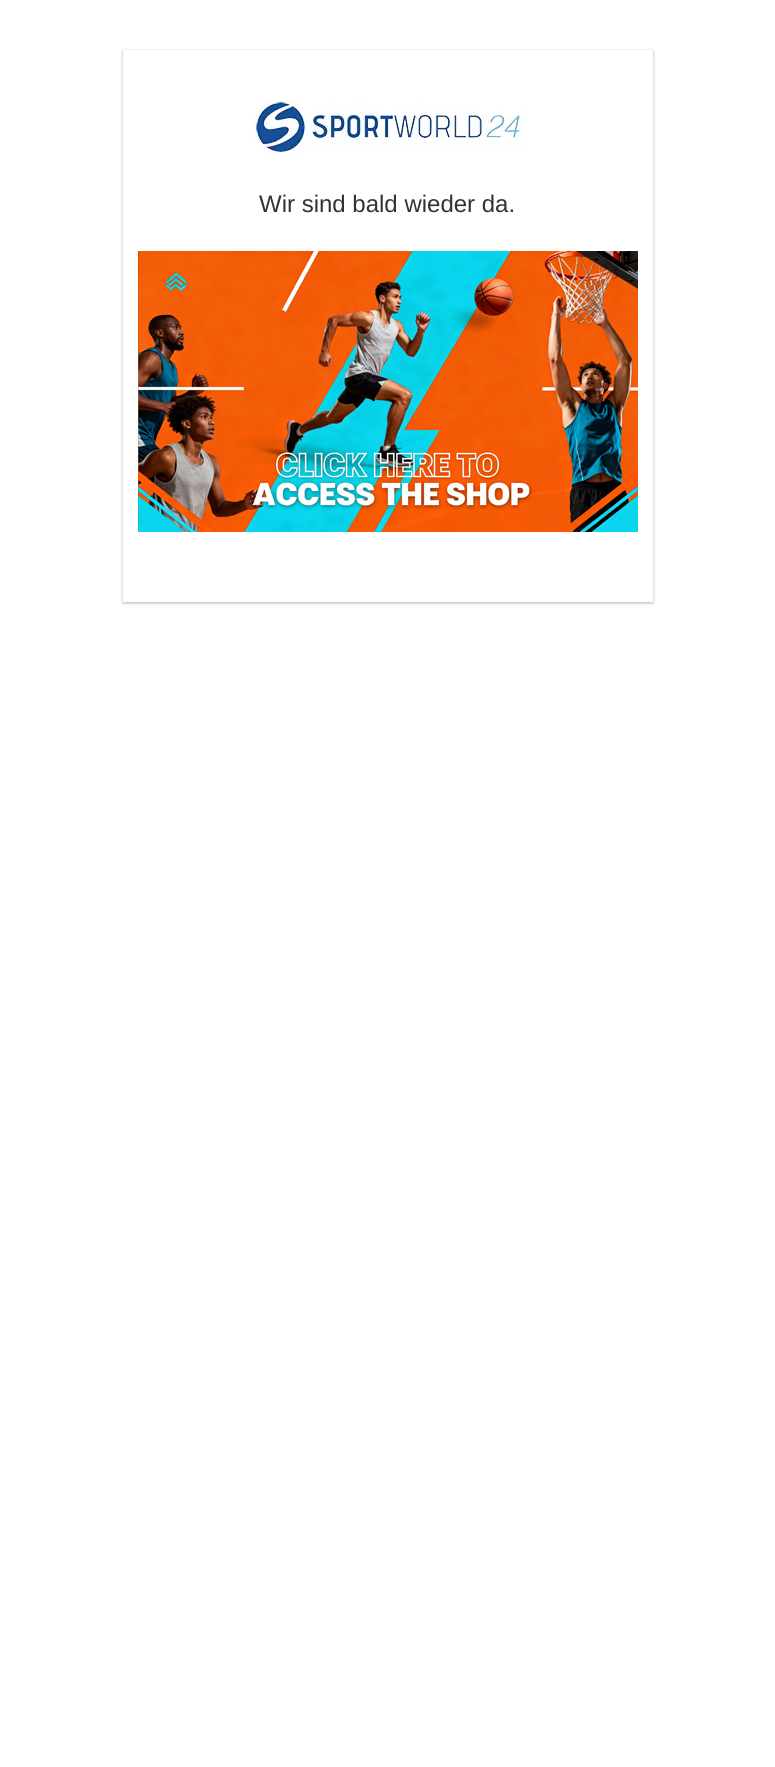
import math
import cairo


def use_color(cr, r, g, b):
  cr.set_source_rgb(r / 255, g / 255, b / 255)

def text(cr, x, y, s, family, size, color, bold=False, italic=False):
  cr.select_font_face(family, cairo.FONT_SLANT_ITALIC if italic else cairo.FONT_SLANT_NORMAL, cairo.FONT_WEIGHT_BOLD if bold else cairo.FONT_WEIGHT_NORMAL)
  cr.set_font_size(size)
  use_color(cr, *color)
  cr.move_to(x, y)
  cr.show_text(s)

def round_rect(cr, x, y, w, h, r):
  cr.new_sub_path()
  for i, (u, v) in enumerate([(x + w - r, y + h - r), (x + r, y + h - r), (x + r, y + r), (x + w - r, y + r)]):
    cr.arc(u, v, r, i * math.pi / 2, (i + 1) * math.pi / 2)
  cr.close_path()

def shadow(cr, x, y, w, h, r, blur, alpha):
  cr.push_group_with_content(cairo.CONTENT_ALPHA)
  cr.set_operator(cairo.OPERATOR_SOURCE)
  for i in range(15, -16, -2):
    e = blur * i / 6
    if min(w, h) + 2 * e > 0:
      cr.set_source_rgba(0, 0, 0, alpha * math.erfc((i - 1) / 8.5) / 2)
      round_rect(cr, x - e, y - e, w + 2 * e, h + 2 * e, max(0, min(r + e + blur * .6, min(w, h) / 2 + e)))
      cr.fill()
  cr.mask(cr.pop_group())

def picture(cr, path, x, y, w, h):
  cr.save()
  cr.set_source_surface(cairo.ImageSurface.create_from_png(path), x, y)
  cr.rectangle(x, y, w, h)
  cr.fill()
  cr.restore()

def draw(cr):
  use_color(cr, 255, 255, 255)
  cr.paint()
  cr.save()
  cr.set_fill_rule(cairo.FILL_RULE_EVEN_ODD)
  cr.new_path()
  cr.move_to(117, 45)
  cr.line_to(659, 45)
  cr.line_to(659, 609)
  cr.line_to(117, 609)
  cr.close_path()
  cr.move_to(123, 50)
  cr.line_to(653, 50)
  cr.line_to(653, 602)
  cr.line_to(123, 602)
  cr.close_path()
  cr.clip()
  use_color(cr, 0, 0, 0)
  shadow(cr, 123, 51, 530, 552, 0, 1.5, 0.3)
  cr.restore()
  picture(cr, "img_01.png", 254, 100, 272, 55)
  picture(cr, "img_02.png", 138, 251, 500, 281)
  text(cr, 259, 212, "Wir sind bald wieder da.", "Liberation Sans", 24, (51, 51, 51))


surface = cairo.ImageSurface(cairo.FORMAT_RGB24, 775, 1767)
cr = cairo.Context(surface)
options = cairo.FontOptions()
options.set_hint_metrics(cairo.HINT_METRICS_OFF)
options.set_hint_style(cairo.HINT_STYLE_NONE)
cr.set_font_options(options)
cr.set_miter_limit(4)
draw(cr)
surface.write_to_png("out.png")
